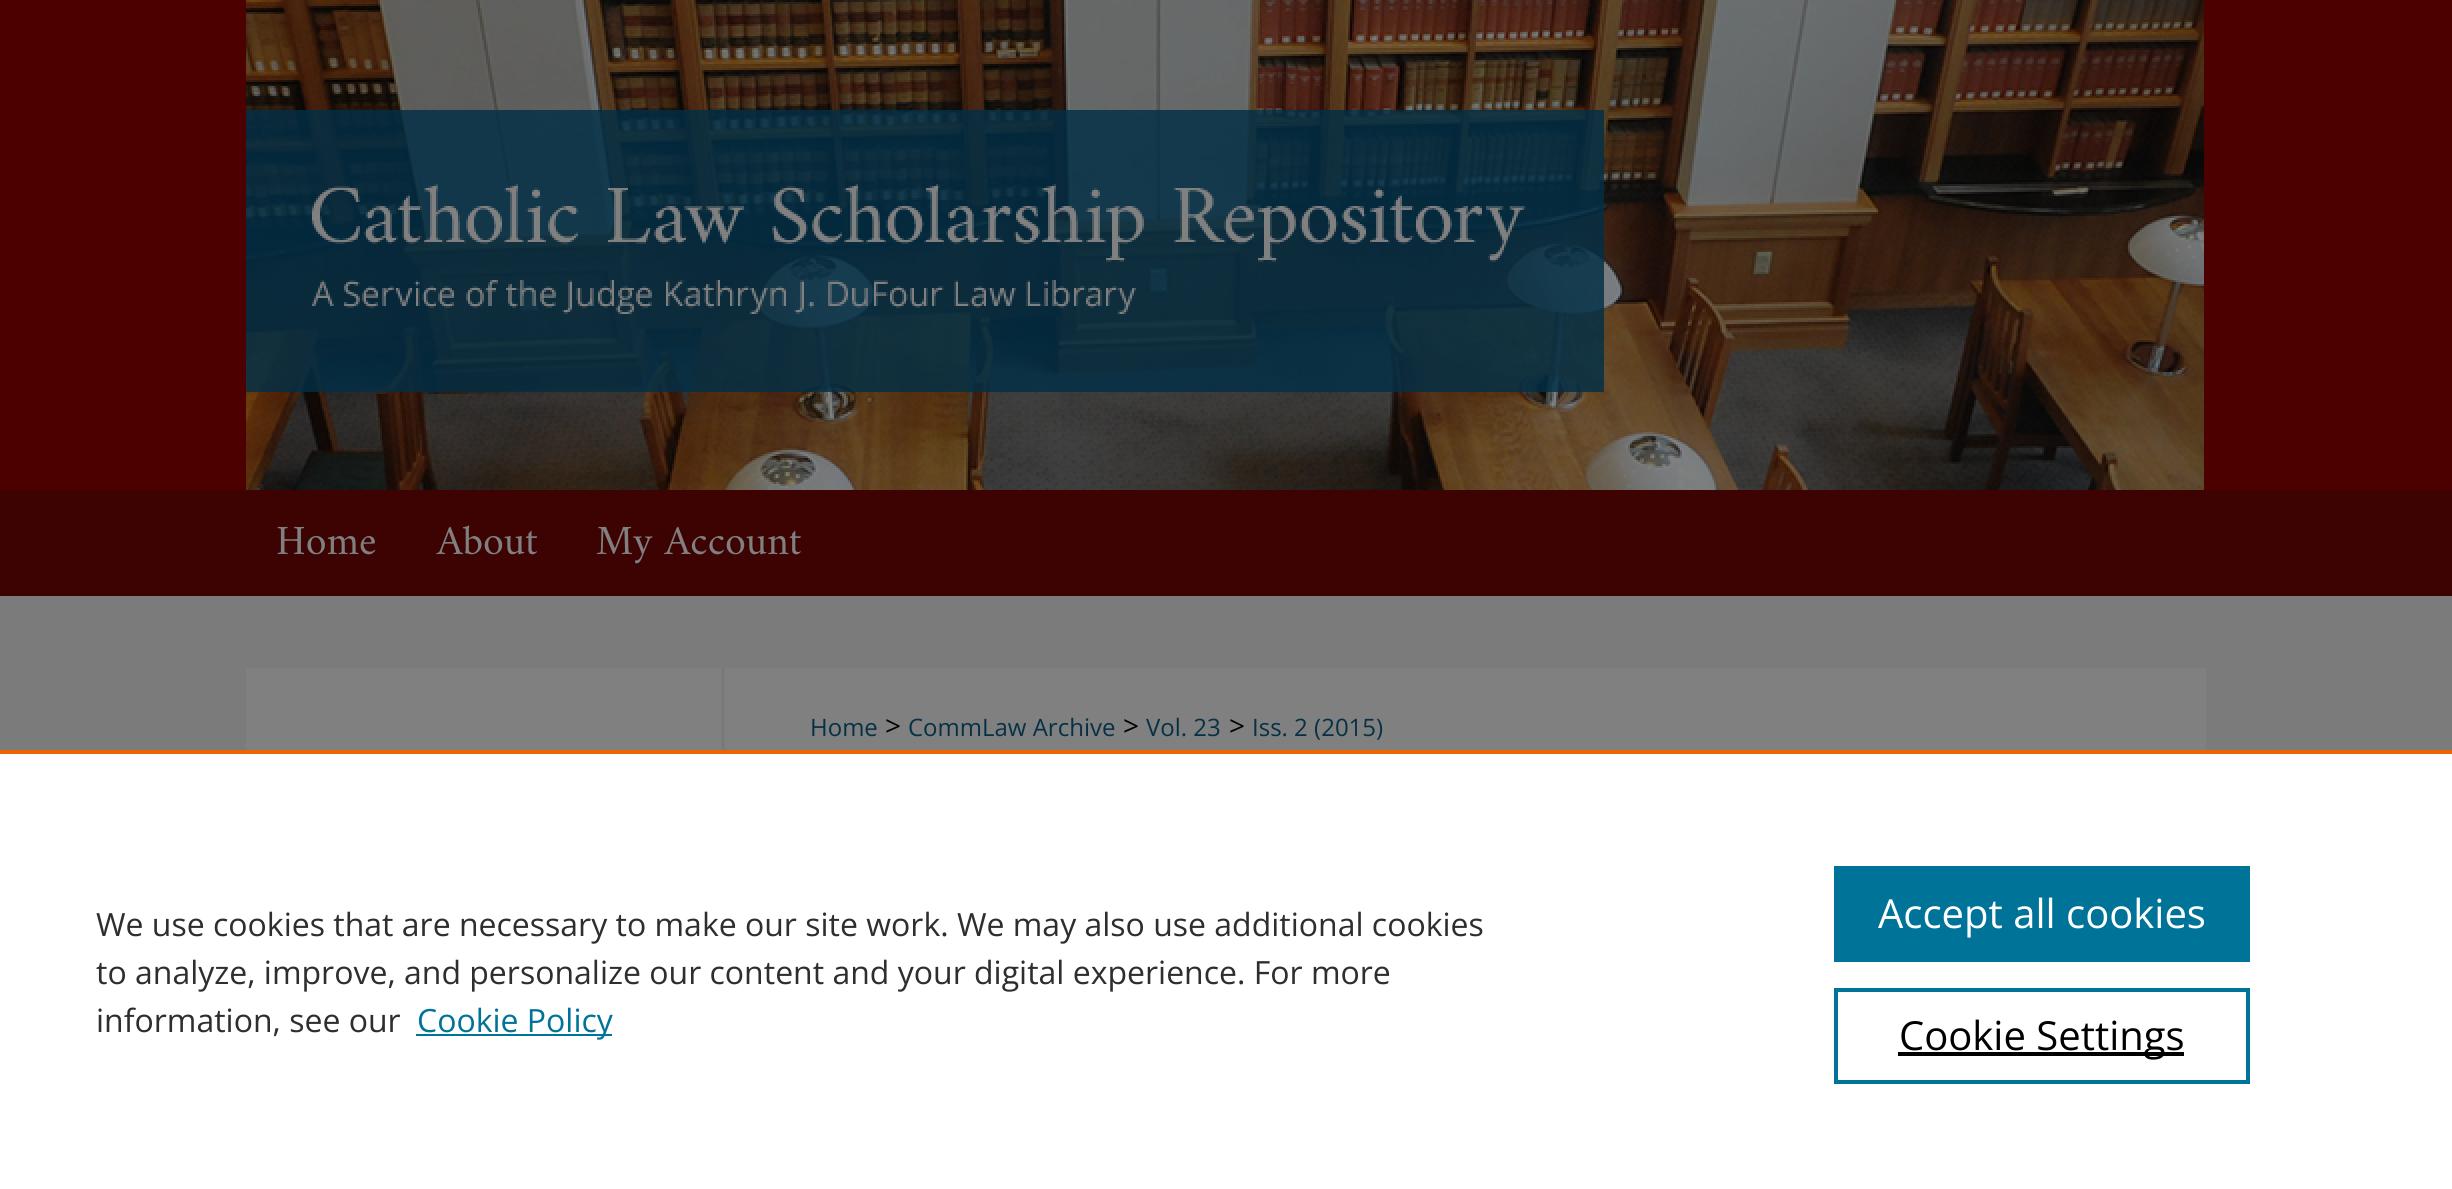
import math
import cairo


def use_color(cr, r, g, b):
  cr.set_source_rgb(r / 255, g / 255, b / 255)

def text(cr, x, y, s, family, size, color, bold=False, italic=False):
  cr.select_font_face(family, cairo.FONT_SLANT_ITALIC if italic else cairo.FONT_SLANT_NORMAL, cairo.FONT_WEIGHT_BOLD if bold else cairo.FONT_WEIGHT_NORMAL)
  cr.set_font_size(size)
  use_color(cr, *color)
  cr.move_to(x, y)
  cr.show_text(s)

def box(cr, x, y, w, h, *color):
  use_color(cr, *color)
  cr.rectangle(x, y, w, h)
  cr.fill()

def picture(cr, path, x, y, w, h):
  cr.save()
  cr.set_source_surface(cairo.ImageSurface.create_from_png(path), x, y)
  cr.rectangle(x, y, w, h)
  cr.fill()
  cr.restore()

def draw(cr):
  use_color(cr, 124, 123, 123)
  cr.paint()
  picture(cr, "img_01.png", 0, 0, 2452, 596)
  box(cr, 2204, 489, 2, 1, 77, 0, 1)
  picture(cr, "img_02.png", 246, 0, 1958, 490)
  box(cr, 246, 490, 1960, 1, 61, 2, 2)
  picture(cr, "img_03.png", 246, 668, 500, 82)
  box(cr, 746, 668, 1460, 82, 128, 128, 128)
  box(cr, 0, 754, 2452, 435, 255, 255, 255)
  box(cr, 0, 750, 2452, 4, 235, 101, 0)
  box(cr, 416, 1034, 196, 2, 0, 115, 152)
  box(cr, 1834, 866, 416, 96, 0, 115, 152)
  cr.rectangle(1836, 990, 412, 92)
  cr.set_line_width(4)
  cr.stroke()
  box(cr, 1898, 1052, 286, 4, 0, 0, 0)
  text(cr, 276, 554, "Home", "Amiri", 42, (128, 128, 128))
  text(cr, 437, 554, "About", "Amiri", 42, (128, 128, 128))
  text(cr, 596, 554, "My Account", "Amiri", 42, (128, 128, 128))
  text(cr, 810, 736, "Home", "Open Sans", 24, (6, 49, 69))
  text(cr, 885, 736, ">", "Open Sans", 28, (0, 0, 0))
  text(cr, 908, 736, "CommLaw Archive", "Open Sans", 24, (6, 49, 69))
  text(cr, 1123, 736, ">", "Open Sans", 28, (0, 0, 0))
  text(cr, 1146, 736, "Vol. 23", "Open Sans", 24, (6, 49, 69))
  text(cr, 1229, 736, ">", "Open Sans", 28, (0, 0, 0))
  text(cr, 1252, 736, "Iss. 2 (2015)", "Open Sans", 24, (6, 49, 69))
  text(cr, 96, 936, "We use cookies that are necessary to make our site work. We may also use additional cookies", "Open Sans", 32, (46, 46, 46))
  text(cr, 96, 984, "to analyze, improve, and personalize our content and your digital experience. For more", "Open Sans", 32, (46, 46, 46))
  text(cr, 96, 1032, "information, see our", "Open Sans", 32, (46, 46, 46))
  text(cr, 417, 1032, "Cookie Policy", "Open Sans", 32, (0, 115, 152))
  text(cr, 1878, 928, "Accept all cookies", "Open Sans", 40, (255, 255, 255))
  text(cr, 1899, 1050, "Cookie Settings", "Open Sans", 40, (0, 0, 0))


surface = cairo.ImageSurface(cairo.FORMAT_RGB24, 2452, 1189)
cr = cairo.Context(surface)
options = cairo.FontOptions()
options.set_hint_metrics(cairo.HINT_METRICS_OFF)
options.set_hint_style(cairo.HINT_STYLE_NONE)
cr.set_font_options(options)
cr.set_miter_limit(4)
draw(cr)
surface.write_to_png("out.png")
